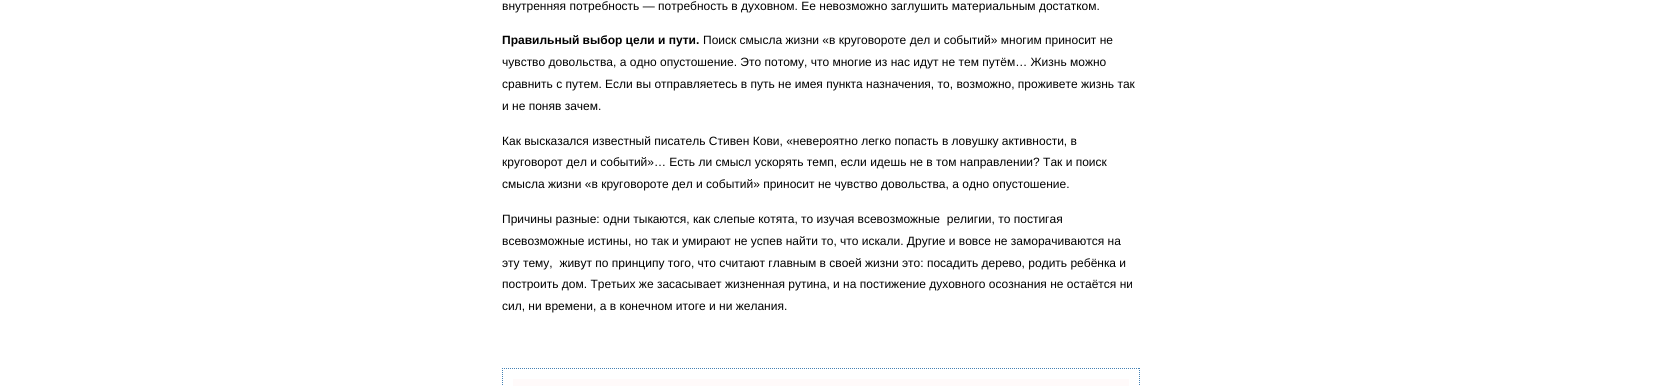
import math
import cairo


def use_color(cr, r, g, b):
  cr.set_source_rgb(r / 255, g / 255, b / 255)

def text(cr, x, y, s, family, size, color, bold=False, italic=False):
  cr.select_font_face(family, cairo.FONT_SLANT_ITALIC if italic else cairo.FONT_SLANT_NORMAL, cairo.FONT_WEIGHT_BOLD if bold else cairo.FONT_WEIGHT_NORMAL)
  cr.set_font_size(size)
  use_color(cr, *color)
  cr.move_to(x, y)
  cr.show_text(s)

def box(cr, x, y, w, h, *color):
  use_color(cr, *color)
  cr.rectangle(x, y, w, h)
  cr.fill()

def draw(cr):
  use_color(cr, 255, 255, 255)
  cr.paint()
  cr.new_path()
  cr.move_to(502, 368.5)
  cr.line_to(1140, 368.5)
  use_color(cr, 70, 130, 180)
  cr.set_line_width(1)
  cr.set_dash([1, 1])
  cr.stroke()
  cr.new_path()
  cr.move_to(1139.5, 368)
  cr.line_to(1139.5, 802)
  cr.stroke()
  cr.new_path()
  cr.move_to(502.5, 368)
  cr.line_to(502.5, 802)
  cr.stroke()
  box(cr, 513, 379, 616, 7, 255, 250, 250)
  text(cr, 502, 10, "внутренняя потребность — потребность в духовном. Ее невозможно заглушить материальным достатком.", "Liberation Sans", 12, (0, 0, 0))
  text(cr, 502, 44, "Правильный выбор цели и пути.", "Liberation Sans", 12, (0, 0, 0), bold=True)
  text(cr, 703, 44, "Поиск смысла жизни «в круговороте дел и событий» многим приносит не", "Liberation Sans", 12, (0, 0, 0))
  text(cr, 502, 66, "чувство довольства, а одно опустошение. Это потому, что многие из нас идут не тем путём… Жизнь можно", "Liberation Sans", 12, (0, 0, 0))
  text(cr, 502, 88, "сравнить с путем. Если вы отправляетесь в путь не имея пункта назначения, то, возможно, проживете жизнь так", "Liberation Sans", 12, (0, 0, 0))
  text(cr, 502, 110, "и не поняв зачем.", "Liberation Sans", 12, (0, 0, 0))
  text(cr, 502, 145, "Как высказался известный писатель Стивен Кови, «невероятно легко попасть в ловушку активности, в", "Liberation Sans", 12, (0, 0, 0))
  text(cr, 502, 166, "круговорот дел и событий»… Есть ли смысл ускорять темп, если идешь не в том направлении? Так и поиск", "Liberation Sans", 12, (0, 0, 0))
  text(cr, 502, 188, "смысла жизни «в круговороте дел и событий» приносит не чувство довольства, а одно опустошение.", "Liberation Sans", 12, (0, 0, 0))
  text(cr, 502, 223, "Причины разные: одни тыкаются, как слепые котята, то изучая всевозможные  религии, то постигая", "Liberation Sans", 12, (0, 0, 0))
  text(cr, 502, 245, "всевозможные истины, но так и умирают не успев найти то, что искали. Другие и вовсе не заморачиваются на", "Liberation Sans", 12, (0, 0, 0))
  text(cr, 502, 267, "эту тему,  живут по принципу того, что считают главным в своей жизни это: посадить дерево, родить ребёнка и", "Liberation Sans", 12, (0, 0, 0))
  text(cr, 502, 288, "построить дом. Третьих же засасывает жизненная рутина, и на постижение духовного осознания не остаётся ни", "Liberation Sans", 12, (0, 0, 0))
  text(cr, 502, 310, "сил, ни времени, а в конечном итоге и ни желания.", "Liberation Sans", 12, (0, 0, 0))


surface = cairo.ImageSurface(cairo.FORMAT_RGB24, 1658, 386)
cr = cairo.Context(surface)
options = cairo.FontOptions()
options.set_hint_metrics(cairo.HINT_METRICS_OFF)
options.set_hint_style(cairo.HINT_STYLE_NONE)
cr.set_font_options(options)
cr.set_miter_limit(4)
draw(cr)
surface.write_to_png("out.png")
